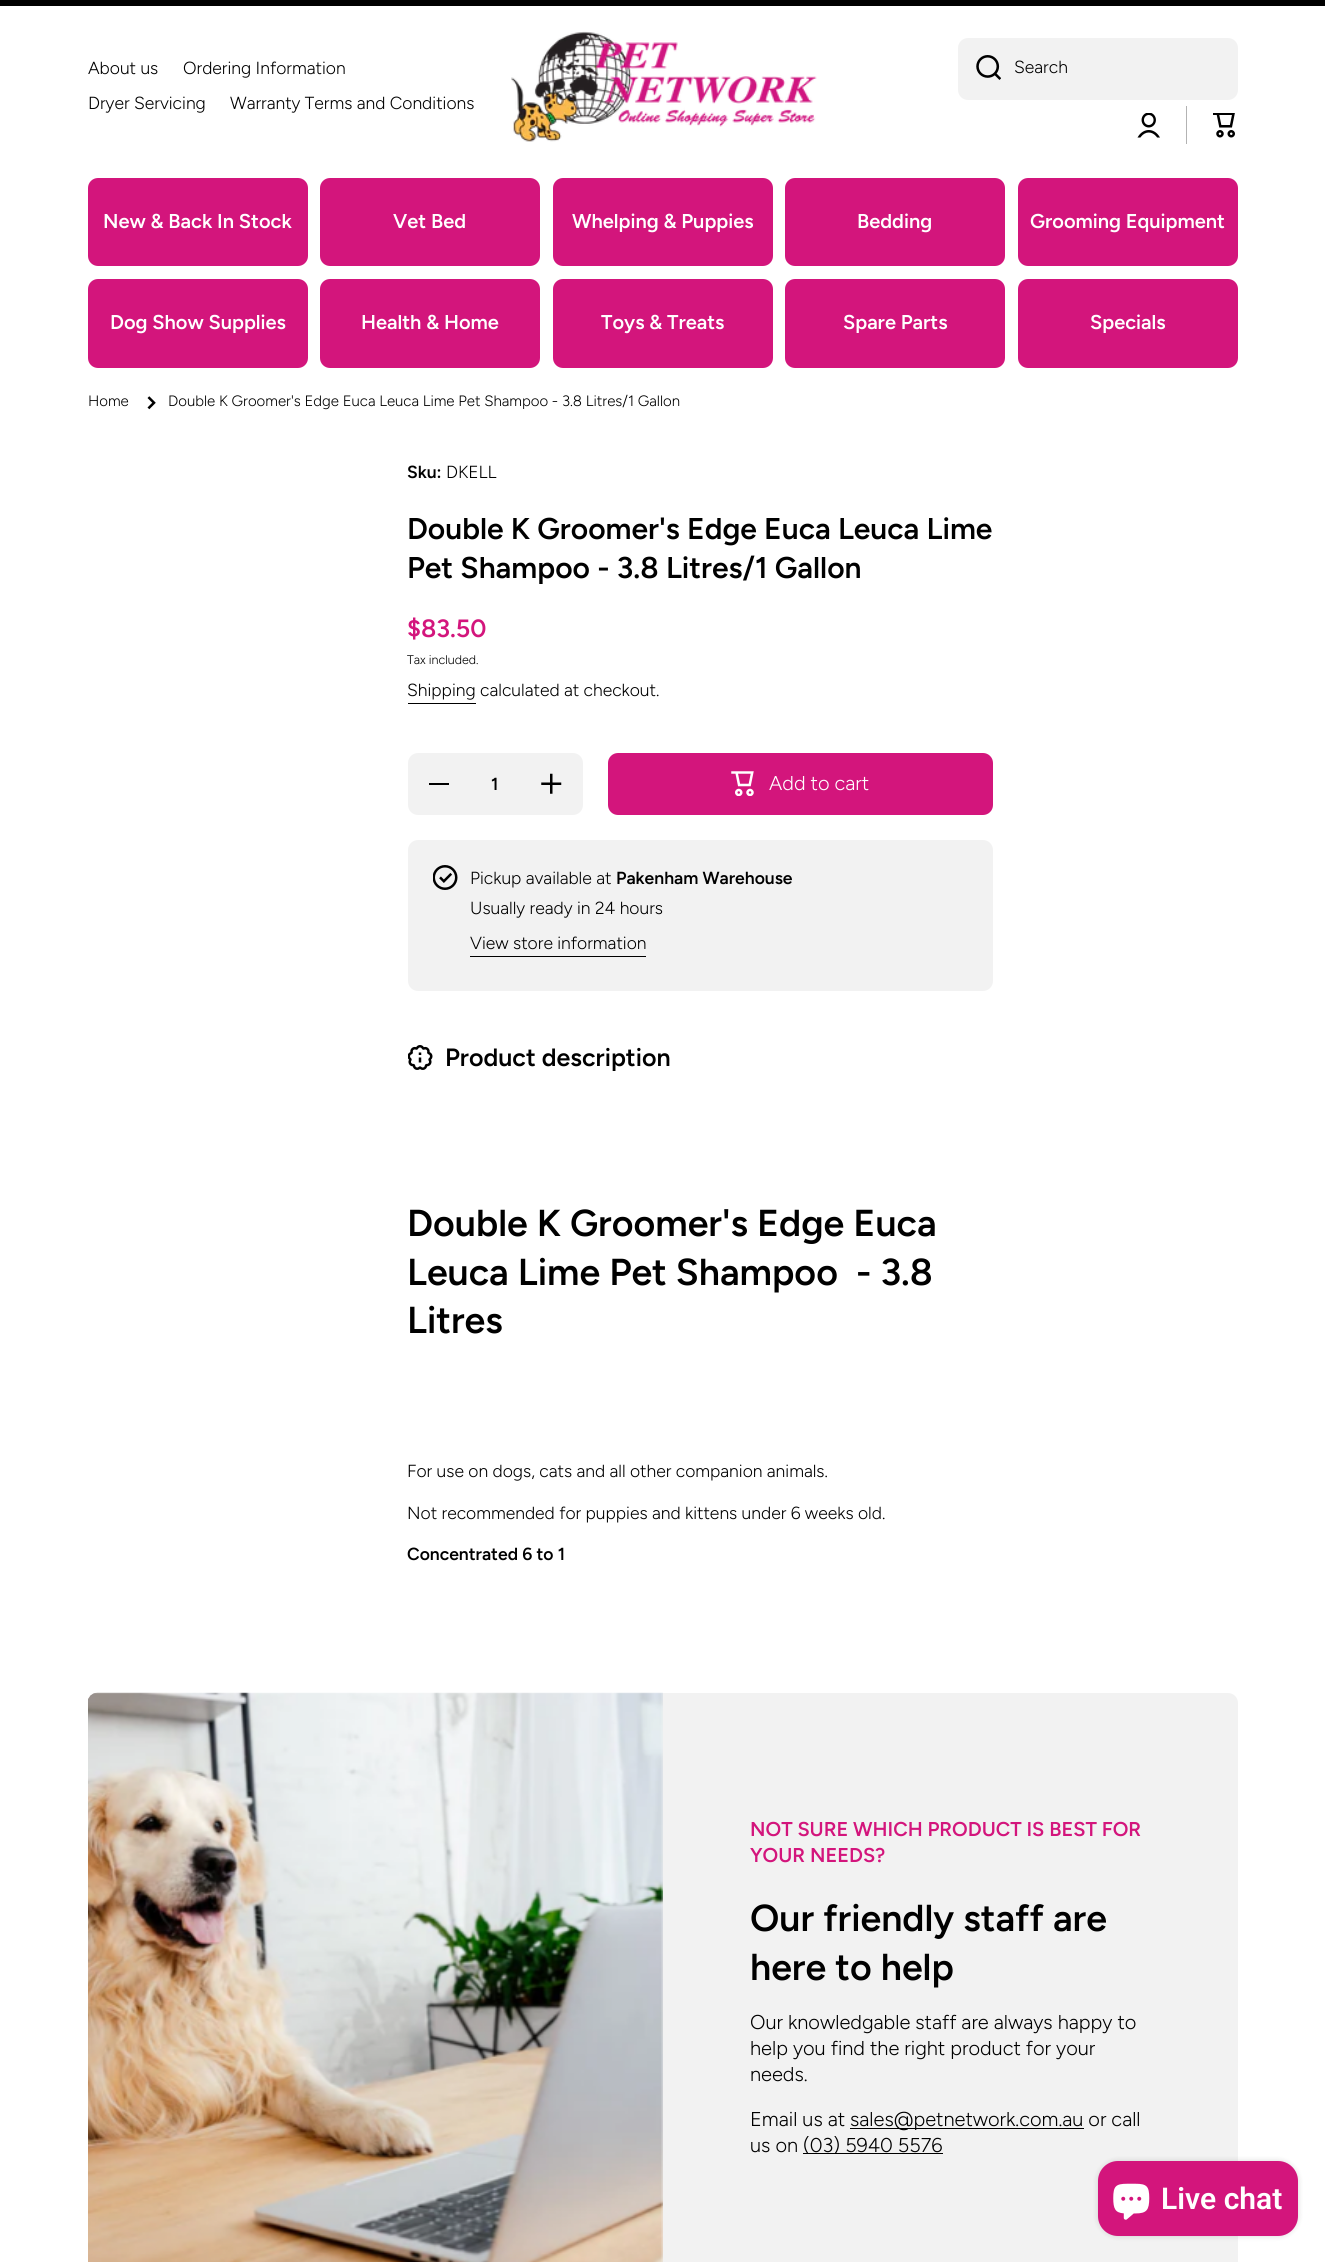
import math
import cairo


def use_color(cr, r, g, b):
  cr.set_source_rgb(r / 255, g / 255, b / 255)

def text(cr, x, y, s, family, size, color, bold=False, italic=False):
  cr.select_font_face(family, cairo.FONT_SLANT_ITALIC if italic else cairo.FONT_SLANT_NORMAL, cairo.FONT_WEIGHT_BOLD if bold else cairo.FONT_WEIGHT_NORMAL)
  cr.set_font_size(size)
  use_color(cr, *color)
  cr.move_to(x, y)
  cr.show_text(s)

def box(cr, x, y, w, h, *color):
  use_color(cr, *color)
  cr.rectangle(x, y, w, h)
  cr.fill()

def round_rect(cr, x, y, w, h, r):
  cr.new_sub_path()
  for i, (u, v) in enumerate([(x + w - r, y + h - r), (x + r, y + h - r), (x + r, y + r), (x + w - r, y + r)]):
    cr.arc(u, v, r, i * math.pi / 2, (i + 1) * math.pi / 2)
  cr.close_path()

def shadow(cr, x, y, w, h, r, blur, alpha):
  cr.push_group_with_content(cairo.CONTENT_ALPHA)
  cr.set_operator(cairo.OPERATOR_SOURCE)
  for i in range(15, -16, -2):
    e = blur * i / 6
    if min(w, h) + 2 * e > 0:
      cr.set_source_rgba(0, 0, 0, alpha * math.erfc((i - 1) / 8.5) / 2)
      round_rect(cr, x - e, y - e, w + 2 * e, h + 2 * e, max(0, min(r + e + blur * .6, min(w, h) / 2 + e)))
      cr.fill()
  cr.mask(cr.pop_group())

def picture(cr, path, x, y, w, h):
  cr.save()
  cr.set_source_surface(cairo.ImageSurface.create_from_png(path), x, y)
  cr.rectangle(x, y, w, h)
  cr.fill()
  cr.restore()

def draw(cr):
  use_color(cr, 255, 255, 255)
  cr.paint()
  box(cr, 0, 0, 1325, 6, 0, 0, 0)
  picture(cr, "img_01.png", 511, 31, 306, 111)
  use_color(cr, 242, 242, 242)
  round_rect(cr, 958, 38, 280, 62, 10)
  cr.fill()
  picture(cr, "img_02.png", 976, 55, 25, 25)
  picture(cr, "img_03.png", 1137, 113, 23, 25)
  box(cr, 1186, 106, 1, 38, 179, 179, 179)
  picture(cr, "img_04.png", 1213, 113, 22, 25)
  use_color(cr, 211, 21, 124)
  round_rect(cr, 88, 178, 220, 88, 10)
  cr.fill()
  round_rect(cr, 320, 178, 220, 88, 10)
  cr.fill()
  round_rect(cr, 553, 178, 220, 88, 10)
  cr.fill()
  round_rect(cr, 785, 178, 220, 88, 10)
  cr.fill()
  round_rect(cr, 1018, 178, 220, 88, 10)
  cr.fill()
  round_rect(cr, 88, 279, 220, 89, 10)
  cr.fill()
  round_rect(cr, 320, 279, 220, 89, 10)
  cr.fill()
  round_rect(cr, 553, 279, 220, 89, 10)
  cr.fill()
  round_rect(cr, 785, 279, 220, 89, 10)
  cr.fill()
  round_rect(cr, 1018, 279, 220, 89, 10)
  cr.fill()
  picture(cr, "img_05.png", 147, 396, 9, 14)
  box(cr, 408, 703, 68, 1, 0, 0, 0)
  use_color(cr, 242, 242, 242)
  round_rect(cr, 408, 753, 175, 62, 10)
  cr.fill()
  box(cr, 429, 783, 20, 2, 0, 0, 0)
  picture(cr, "img_06.png", 541, 773, 21, 21)
  use_color(cr, 211, 21, 124)
  round_rect(cr, 608, 753, 385, 62, 10)
  cr.fill()
  picture(cr, "img_07.png", 731, 771, 23, 25)
  use_color(cr, 242, 242, 242)
  round_rect(cr, 408, 840, 585, 151, 10)
  cr.fill()
  picture(cr, "img_08.png", 433, 865, 25, 25)
  box(cr, 470, 956, 176, 1, 0, 0, 0)
  picture(cr, "img_09.png", 408, 1045, 25, 25)
  use_color(cr, 242, 242, 242)
  round_rect(cr, 88, 1693, 1150, 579, 10)
  cr.fill()
  picture(cr, "img_10.png", 88, 1692, 575, 570)
  box(cr, 850, 2128, 234, 1, 0, 0, 0)
  box(cr, 803, 2153, 140, 1, 0, 0, 0)
  use_color(cr, 0, 0, 0)
  shadow(cr, 1098, 2161, 200, 75, 20, 3, 0.15)
  use_color(cr, 211, 21, 124)
  round_rect(cr, 1098, 2161, 200, 75, 20)
  cr.fill()
  picture(cr, "img_11.png", 1113, 2183, 37, 37)
  text(cr, 88, 74, "About us", "Figtree Light", 17.5, (0, 0, 0))
  text(cr, 183, 74, "Ordering Information", "Figtree Light", 17.5, (0, 0, 0))
  text(cr, 88, 109, "Dryer Servicing", "Figtree Light", 17.5, (0, 0, 0))
  text(cr, 230, 109, "Warranty Terms and Conditions", "Figtree Light", 17.5, (0, 0, 0))
  text(cr, 1014, 73, "Search", "Figtree Light", 17.5, (0, 0, 0))
  text(cr, 103, 228, "New & Back In Stock", "Figtree SemiBold", 20, (255, 255, 255))
  text(cr, 393, 228, "Vet Bed", "Figtree SemiBold", 20, (255, 255, 255))
  text(cr, 572, 228, "Whelping & Puppies", "Figtree SemiBold", 20, (255, 255, 255))
  text(cr, 857, 228, "Bedding", "Figtree SemiBold", 20, (255, 255, 255))
  text(cr, 1030, 228, "Grooming Equipment", "Figtree SemiBold", 20, (255, 255, 255))
  text(cr, 110, 329, "Dog Show Supplies", "Figtree SemiBold", 20, (255, 255, 255))
  text(cr, 361, 329, "Health & Home", "Figtree SemiBold", 20, (255, 255, 255))
  text(cr, 601, 329, "Toys & Treats", "Figtree SemiBold", 20, (255, 255, 255))
  text(cr, 843, 329, "Spare Parts", "Figtree SemiBold", 20, (255, 255, 255))
  text(cr, 1090, 329, "Specials", "Figtree SemiBold", 20, (255, 255, 255))
  text(cr, 88, 406, "Home", "Figtree Light", 15, (0, 0, 0))
  text(cr, 168, 406, "Double K Groomer's Edge Euca Leuca Lime Pet Shampoo - 3.8 Litres/1 Gallon", "Figtree Light", 15, (0, 0, 0))
  text(cr, 407, 478, "Sku:", "Figtree SemiBold", 17.5, (0, 0, 0))
  text(cr, 446, 478, "DKELL", "Figtree Light", 17.5, (0, 0, 0))
  text(cr, 407, 539, "Double K Groomer's Edge Euca Leuca Lime", "Figtree SemiBold", 30, (0, 0, 0))
  text(cr, 407, 578, "Pet Shampoo - 3.8 Litres/1 Gallon", "Figtree SemiBold", 30, (0, 0, 0))
  text(cr, 407, 637, "$83.50", "Figtree SemiBold", 25, (211, 21, 124))
  text(cr, 407, 664, "Tax included.", "Figtree Light", 12.5, (0, 0, 0))
  text(cr, 407, 696, "Shipping", "Figtree Light", 17.5, (0, 0, 0))
  text(cr, 480, 696, "calculated at checkout.", "Figtree Light", 17.5, (0, 0, 0))
  text(cr, 491, 790, "1", "Figtree SemiBold", 17.5, (0, 0, 0))
  text(cr, 769, 790, "Add to cart", "Figtree Light", 20, (255, 255, 255))
  text(cr, 470, 884, "Pickup available at", "Figtree Light", 17.5, (0, 0, 0))
  text(cr, 616, 884, "Pakenham Warehouse", "Figtree SemiBold", 17.5, (0, 0, 0))
  text(cr, 470, 914, "Usually ready in 24 hours", "Figtree Light", 17.5, (0, 0, 0))
  text(cr, 470, 949, "View store information", "Figtree Light", 17.5, (0, 0, 0))
  text(cr, 445, 1066, "Product description", "Figtree SemiBold", 25, (0, 0, 0))
  text(cr, 407, 1236, "Double K Groomer's Edge Euca", "Figtree SemiBold", 37.5, (0, 0, 0))
  text(cr, 407, 1285, "Leuca Lime Pet Shampoo  - 3.8", "Figtree SemiBold", 37.5, (0, 0, 0))
  text(cr, 407, 1333, "Litres", "Figtree SemiBold", 37.5, (0, 0, 0))
  text(cr, 407, 1477, "For use on dogs, cats and all other companion animals.", "Figtree Light", 17.5, (0, 0, 0))
  text(cr, 407, 1519, "Not recommended for puppies and kittens under 6 weeks old.", "Figtree Light", 17.5, (0, 0, 0))
  text(cr, 407, 1560, "Concentrated 6 to 1", "Figtree SemiBold", 17.5, (0, 0, 0))
  text(cr, 750, 1836, "NOT SURE WHICH PRODUCT IS BEST FOR", "Figtree SemiBold", 20, (211, 21, 124))
  text(cr, 750, 1862, "YOUR NEEDS?", "Figtree SemiBold", 20, (211, 21, 124))
  text(cr, 750, 1931, "Our friendly staff are", "Figtree SemiBold", 37.5, (0, 0, 0))
  text(cr, 750, 1980, "here to help", "Figtree SemiBold", 37.5, (0, 0, 0))
  text(cr, 750, 2029, "Our knowledgable staff are always happy to", "Figtree Light", 20, (0, 0, 0))
  text(cr, 750, 2055, "help you find the right product for your", "Figtree Light", 20, (0, 0, 0))
  text(cr, 750, 2081, "needs.", "Figtree Light", 20, (0, 0, 0))
  text(cr, 750, 2126, "Email us at", "Figtree Light", 20, (0, 0, 0))
  text(cr, 850, 2126, "sales@petnetwork.com.au or call", "Figtree Light", 20, (0, 0, 0))
  text(cr, 750, 2152, "us on", "Figtree Light", 20, (0, 0, 0))
  text(cr, 803, 2152, "(03) 5940 5576", "Figtree Light", 20, (0, 0, 0))
  text(cr, 1161, 2209, "Live chat", "Roboto SemiBold", 30, (255, 255, 255))


surface = cairo.ImageSurface(cairo.FORMAT_RGB24, 1325, 2262)
cr = cairo.Context(surface)
options = cairo.FontOptions()
options.set_hint_metrics(cairo.HINT_METRICS_OFF)
options.set_hint_style(cairo.HINT_STYLE_NONE)
cr.set_font_options(options)
cr.set_miter_limit(4)
draw(cr)
surface.write_to_png("out.png")
